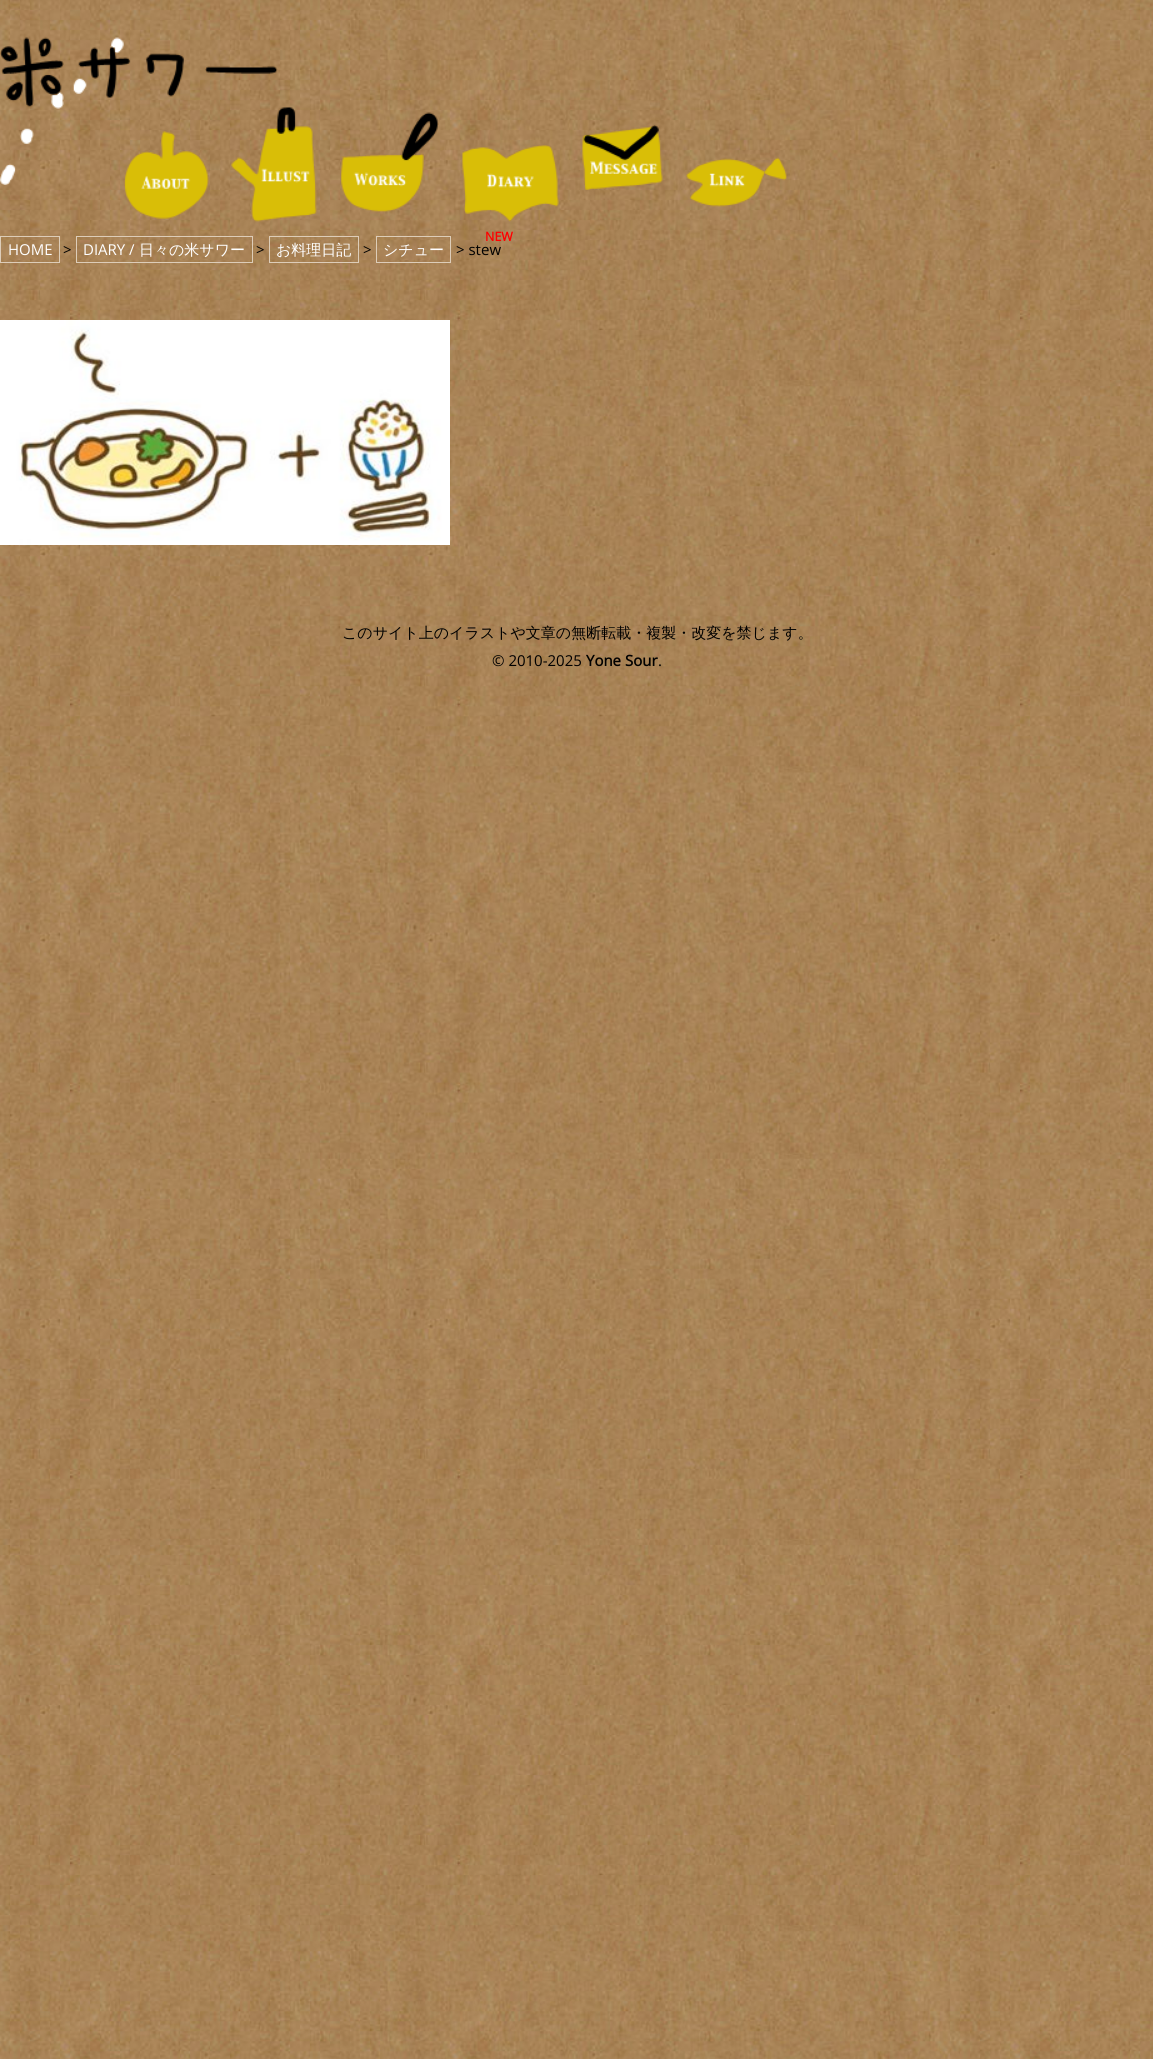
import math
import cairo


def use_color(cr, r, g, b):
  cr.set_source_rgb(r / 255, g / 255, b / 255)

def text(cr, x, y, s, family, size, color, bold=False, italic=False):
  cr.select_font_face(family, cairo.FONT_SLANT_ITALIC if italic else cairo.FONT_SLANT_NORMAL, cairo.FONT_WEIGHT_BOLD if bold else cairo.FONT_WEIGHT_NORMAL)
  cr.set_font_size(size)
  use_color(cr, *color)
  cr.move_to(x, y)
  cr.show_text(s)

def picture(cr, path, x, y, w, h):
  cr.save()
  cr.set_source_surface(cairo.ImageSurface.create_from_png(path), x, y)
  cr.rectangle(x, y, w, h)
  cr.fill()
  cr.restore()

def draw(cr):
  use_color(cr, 255, 255, 255)
  cr.paint()
  picture(cr, "img_01.png", 0, 0, 1153, 2059)
  picture(cr, "img_02.png", 0, 37, 124, 148)
  picture(cr, "img_03.png", 0, 37, 278, 70)
  picture(cr, "img_04.png", 124, 131, 85, 88)
  picture(cr, "img_05.png", 231, 107, 86, 115)
  picture(cr, "img_06.png", 341, 112, 98, 100)
  picture(cr, "img_07.png", 582, 125, 81, 65)
  picture(cr, "img_08.png", 686, 157, 101, 50)
  picture(cr, "img_09.png", 462, 145, 97, 77)
  cr.rectangle(0.5, 236.5, 59, 26)
  use_color(cr, 221, 205, 185)
  cr.set_line_width(1)
  cr.stroke()
  cr.rectangle(76.5, 236.5, 176, 26)
  cr.stroke()
  cr.rectangle(269.5, 236.5, 89, 26)
  cr.stroke()
  cr.rectangle(376.5, 236.5, 74, 26)
  cr.stroke()
  picture(cr, "img_10.png", 0, 320, 450, 225)
  text(cr, 485, 241, "NEW", "Open Sans", 12.5, (255, 0, 0), bold=True)
  text(cr, 8, 255, "HOME", "Open Sans", 15, (255, 255, 255))
  text(cr, 63, 255, ">", "Open Sans", 15, (0, 0, 0))
  text(cr, 83, 255, "DIARY /", "Open Sans", 15, (255, 255, 255))
  text(cr, 139, 255, "日々の米サワー", "WenQuanYi Zen Hei Medium", 15, (255, 255, 255))
  text(cr, 256, 255, ">", "Open Sans", 15, (0, 0, 0))
  text(cr, 276, 255, "お料理日記", "WenQuanYi Zen Hei Medium", 15, (255, 255, 255))
  text(cr, 363, 255, ">", "Open Sans", 15, (0, 0, 0))
  text(cr, 383, 255, "シチュー", "WenQuanYi Zen Hei Medium", 15, (255, 255, 255))
  text(cr, 456, 255, "> stew", "Open Sans", 15, (0, 0, 0))
  text(cr, 342, 638, "このサイト上のイラストや文章の無断転載・複製・改変を禁じます。", "WenQuanYi Zen Hei Medium", 15, (0, 0, 0))
  text(cr, 492, 666, "© 2010-2025", "Open Sans", 15, (0, 0, 0))
  text(cr, 586, 666, "Yone Sour", "Open Sans", 15, (0, 0, 0), bold=True)
  text(cr, 658, 666, ".", "Open Sans", 15, (0, 0, 0))


surface = cairo.ImageSurface(cairo.FORMAT_RGB24, 1153, 2059)
cr = cairo.Context(surface)
options = cairo.FontOptions()
options.set_hint_metrics(cairo.HINT_METRICS_OFF)
options.set_hint_style(cairo.HINT_STYLE_NONE)
cr.set_font_options(options)
cr.set_miter_limit(4)
draw(cr)
surface.write_to_png("out.png")
